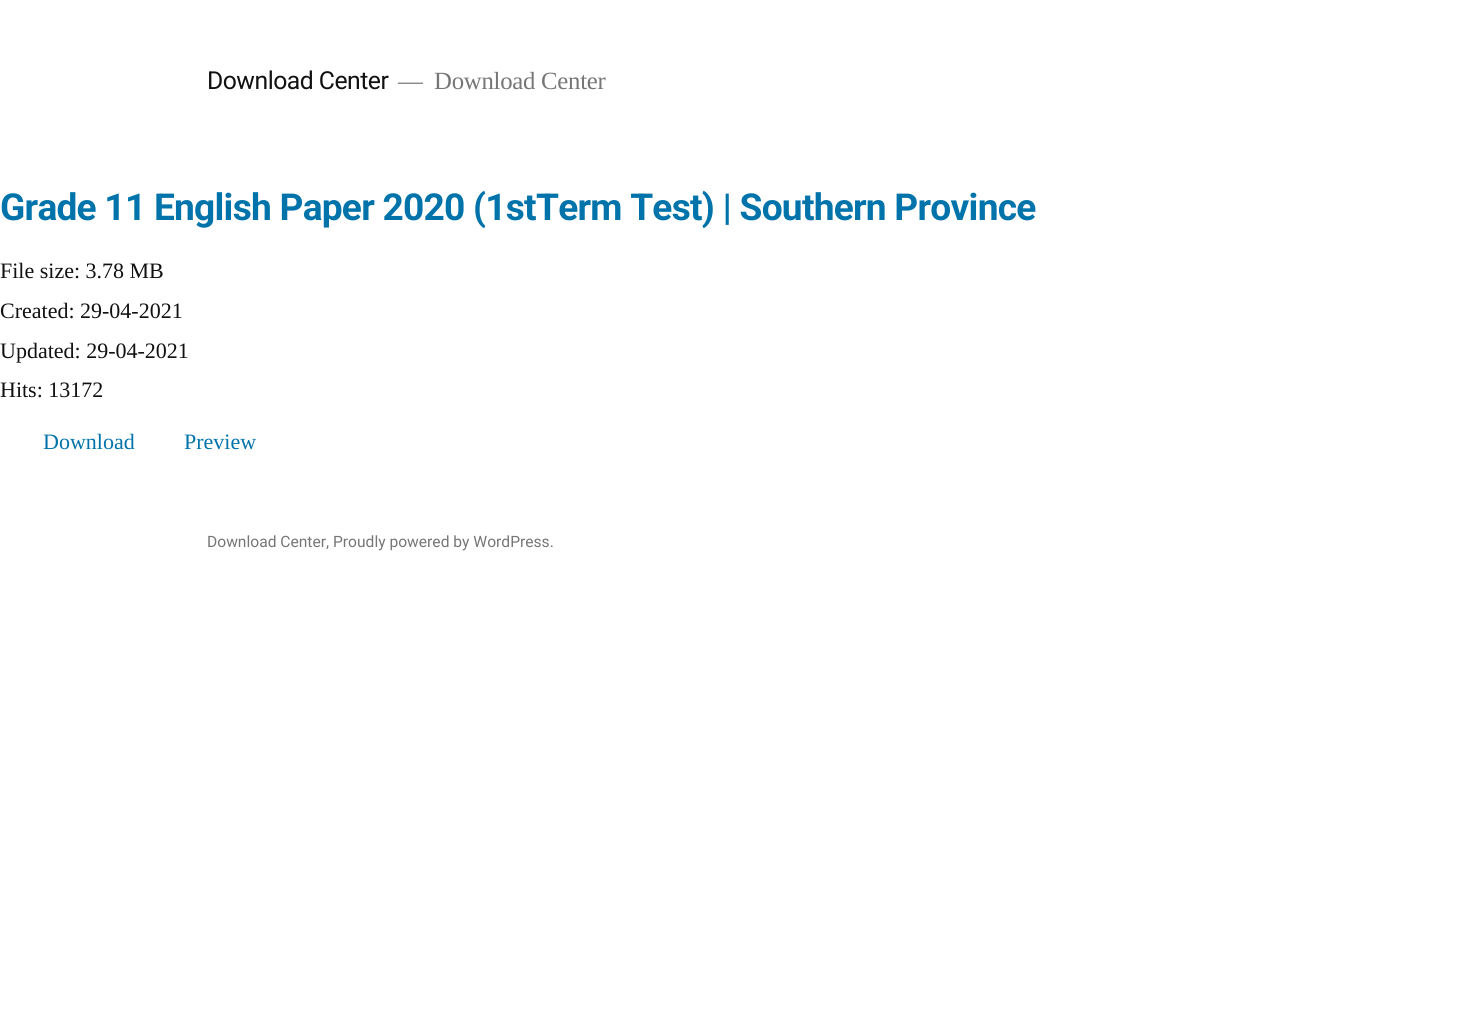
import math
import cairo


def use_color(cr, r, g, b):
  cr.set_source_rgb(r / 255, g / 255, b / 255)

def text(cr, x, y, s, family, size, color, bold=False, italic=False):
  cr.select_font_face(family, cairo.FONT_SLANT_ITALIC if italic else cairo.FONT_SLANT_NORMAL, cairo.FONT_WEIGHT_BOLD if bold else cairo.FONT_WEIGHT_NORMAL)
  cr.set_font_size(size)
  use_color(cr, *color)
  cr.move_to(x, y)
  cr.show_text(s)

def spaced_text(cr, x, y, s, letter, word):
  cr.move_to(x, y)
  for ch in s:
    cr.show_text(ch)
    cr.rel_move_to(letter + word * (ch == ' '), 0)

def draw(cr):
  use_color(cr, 255, 255, 255)
  cr.paint()
  cr.select_font_face("Roboto")
  cr.set_font_size(24.75)
  use_color(cr, 17, 17, 17)
  spaced_text(cr, 207, 89, "Download Center", -0.5, 0)
  cr.select_font_face("Liberation Serif")
  use_color(cr, 118, 118, 118)
  spaced_text(cr, 398, 89, "—", -0.25, 0)
  spaced_text(cr, 434, 89, "Download Center", -0.25, 0)
  cr.select_font_face("Roboto", cairo.FONT_SLANT_NORMAL, cairo.FONT_WEIGHT_BOLD)
  cr.set_font_size(37.1)
  use_color(cr, 0, 115, 170)
  spaced_text(cr, 0, 220, "Grade 11 English Paper 2020 (1stTerm Test) | Southern Province", -0.75, 0)
  text(cr, 0, 278, "File size: 3.78 MB", "Liberation Serif", 22, (17, 17, 17))
  text(cr, 0, 318, "Created: 29-04-2021", "Liberation Serif", 22, (17, 17, 17))
  text(cr, 0, 358, "Updated: 29-04-2021", "Liberation Serif", 22, (17, 17, 17))
  text(cr, 0, 397, "Hits: 13172", "Liberation Serif", 22, (17, 17, 17))
  text(cr, 43, 449, "Download", "Liberation Serif", 22, (0, 115, 170))
  text(cr, 184, 449, "Preview", "Liberation Serif", 22, (0, 115, 170))
  text(cr, 207, 547, "Download Center, Proudly powered by WordPress.", "Roboto", 15.6, (118, 118, 118))


surface = cairo.ImageSurface(cairo.FORMAT_RGB24, 1466, 1013)
cr = cairo.Context(surface)
options = cairo.FontOptions()
options.set_hint_metrics(cairo.HINT_METRICS_OFF)
options.set_hint_style(cairo.HINT_STYLE_NONE)
cr.set_font_options(options)
cr.set_miter_limit(4)
draw(cr)
surface.write_to_png("out.png")
